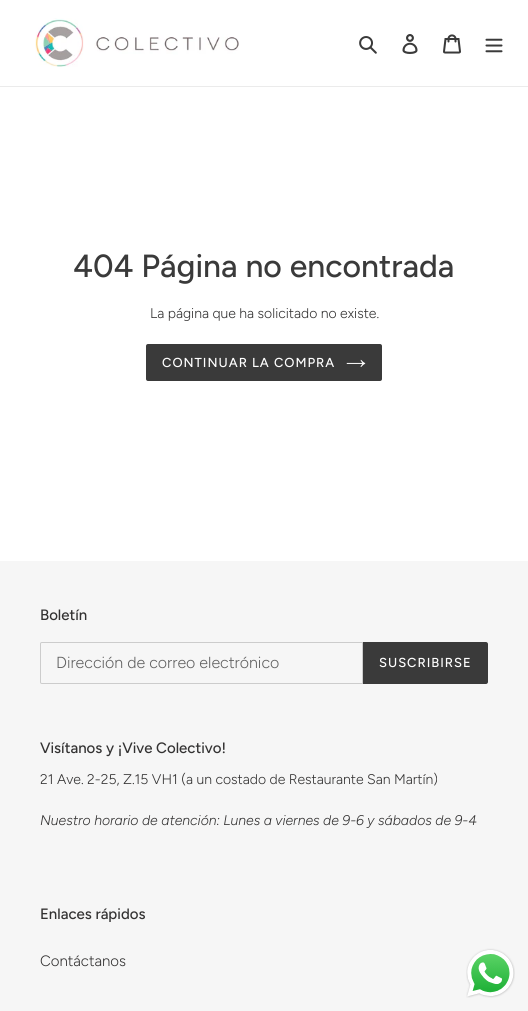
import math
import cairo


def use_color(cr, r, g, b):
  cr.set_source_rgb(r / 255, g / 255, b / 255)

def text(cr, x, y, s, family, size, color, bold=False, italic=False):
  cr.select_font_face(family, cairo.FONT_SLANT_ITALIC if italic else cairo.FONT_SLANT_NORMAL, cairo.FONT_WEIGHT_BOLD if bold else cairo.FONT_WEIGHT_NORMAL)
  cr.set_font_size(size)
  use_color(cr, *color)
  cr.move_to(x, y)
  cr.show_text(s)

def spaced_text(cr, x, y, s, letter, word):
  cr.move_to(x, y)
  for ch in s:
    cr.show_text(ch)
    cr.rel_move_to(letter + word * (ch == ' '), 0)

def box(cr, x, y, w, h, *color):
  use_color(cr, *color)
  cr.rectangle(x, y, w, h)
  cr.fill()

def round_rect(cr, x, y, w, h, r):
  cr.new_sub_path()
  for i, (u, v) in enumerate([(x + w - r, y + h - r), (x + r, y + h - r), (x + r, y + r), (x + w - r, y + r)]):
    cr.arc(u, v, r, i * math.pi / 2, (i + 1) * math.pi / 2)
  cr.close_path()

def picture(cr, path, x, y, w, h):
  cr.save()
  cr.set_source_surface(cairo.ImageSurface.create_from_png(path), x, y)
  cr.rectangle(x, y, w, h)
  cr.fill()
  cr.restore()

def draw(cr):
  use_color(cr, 255, 255, 255)
  cr.paint()
  box(cr, 0, 86, 528, 1, 235, 235, 235)
  picture(cr, "img_01.png", 35, 18, 204, 49)
  picture(cr, "img_02.png", 359, 36, 18, 18)
  picture(cr, "img_03.png", 402, 34, 16, 20)
  picture(cr, "img_04.png", 443, 34, 18, 20)
  picture(cr, "img_05.png", 485, 38, 18, 15)
  use_color(cr, 58, 58, 58)
  round_rect(cr, 146, 344, 236, 37, 2)
  cr.fill()
  picture(cr, "img_06.png", 346, 359, 20, 8)
  box(cr, 0, 561, 528, 450, 246, 246, 246)
  cr.new_path()
  cr.move_to(42, 642.5)
  cr.line_to(362.5, 642.5)
  cr.line_to(362.5, 683.5)
  cr.line_to(42, 683.5)
  cr.curve_to(41, 683.5, 40.5, 683, 40.5, 682)
  cr.line_to(40.5, 644)
  cr.curve_to(40.5, 643, 41, 642.5, 42, 642.5)
  cr.close_path()
  use_color(cr, 204, 204, 204)
  cr.set_line_width(1)
  cr.stroke()
  use_color(cr, 58, 58, 58)
  cr.new_path()
  cr.move_to(363, 642)
  cr.line_to(486, 642)
  cr.curve_to(487, 642, 488, 643, 488, 644)
  cr.line_to(488, 682)
  cr.curve_to(488, 683, 487, 684, 486, 684)
  cr.line_to(363, 684)
  cr.close_path()
  cr.fill()
  picture(cr, "img_07.png", 466, 948, 49, 50)
  text(cr, 73, 277, "404 Página no encontrada", "Figtree Medium", 32, (58, 58, 58))
  text(cr, 150, 318, "La página que ha solicitado no existe.", "Figtree Light", 14, (51, 50, 50))
  cr.select_font_face("Figtree Medium")
  cr.set_font_size(13)
  use_color(cr, 255, 255, 255)
  spaced_text(cr, 162, 367, "CONTINUAR LA COMPRA", 1, 0)
  text(cr, 40, 620, "Boletín", "Figtree Medium", 15, (51, 50, 50))
  text(cr, 56, 668, "Dirección de correo electrónico", "Figtree Light", 16, (98, 98, 98))
  cr.select_font_face("Figtree Medium")
  cr.set_font_size(13)
  use_color(cr, 255, 255, 255)
  spaced_text(cr, 379, 667, "SUSCRIBIRSE", 1, 0)
  text(cr, 40, 753, "Visítanos y ¡Vive Colectivo!", "Figtree Medium", 15, (51, 50, 50))
  text(cr, 40, 784, "21 Ave. 2-25, Z.15 VH1 (a un costado de Restaurante San Martín)", "Figtree Light", 14, (51, 50, 50))
  text(cr, 40, 825, "Nuestro horario de atención: Lunes a viernes de 9-6 y sábados de 9-4", "Figtree Light", 14, (51, 50, 50), italic=True)
  text(cr, 40, 919, "Enlaces rápidos", "Figtree Medium", 15, (51, 50, 50))
  text(cr, 40, 966, "Contáctanos", "Figtree Light", 15, (51, 50, 50))


surface = cairo.ImageSurface(cairo.FORMAT_RGB24, 528, 1011)
cr = cairo.Context(surface)
options = cairo.FontOptions()
options.set_hint_metrics(cairo.HINT_METRICS_OFF)
options.set_hint_style(cairo.HINT_STYLE_NONE)
cr.set_font_options(options)
cr.set_miter_limit(4)
draw(cr)
surface.write_to_png("out.png")
